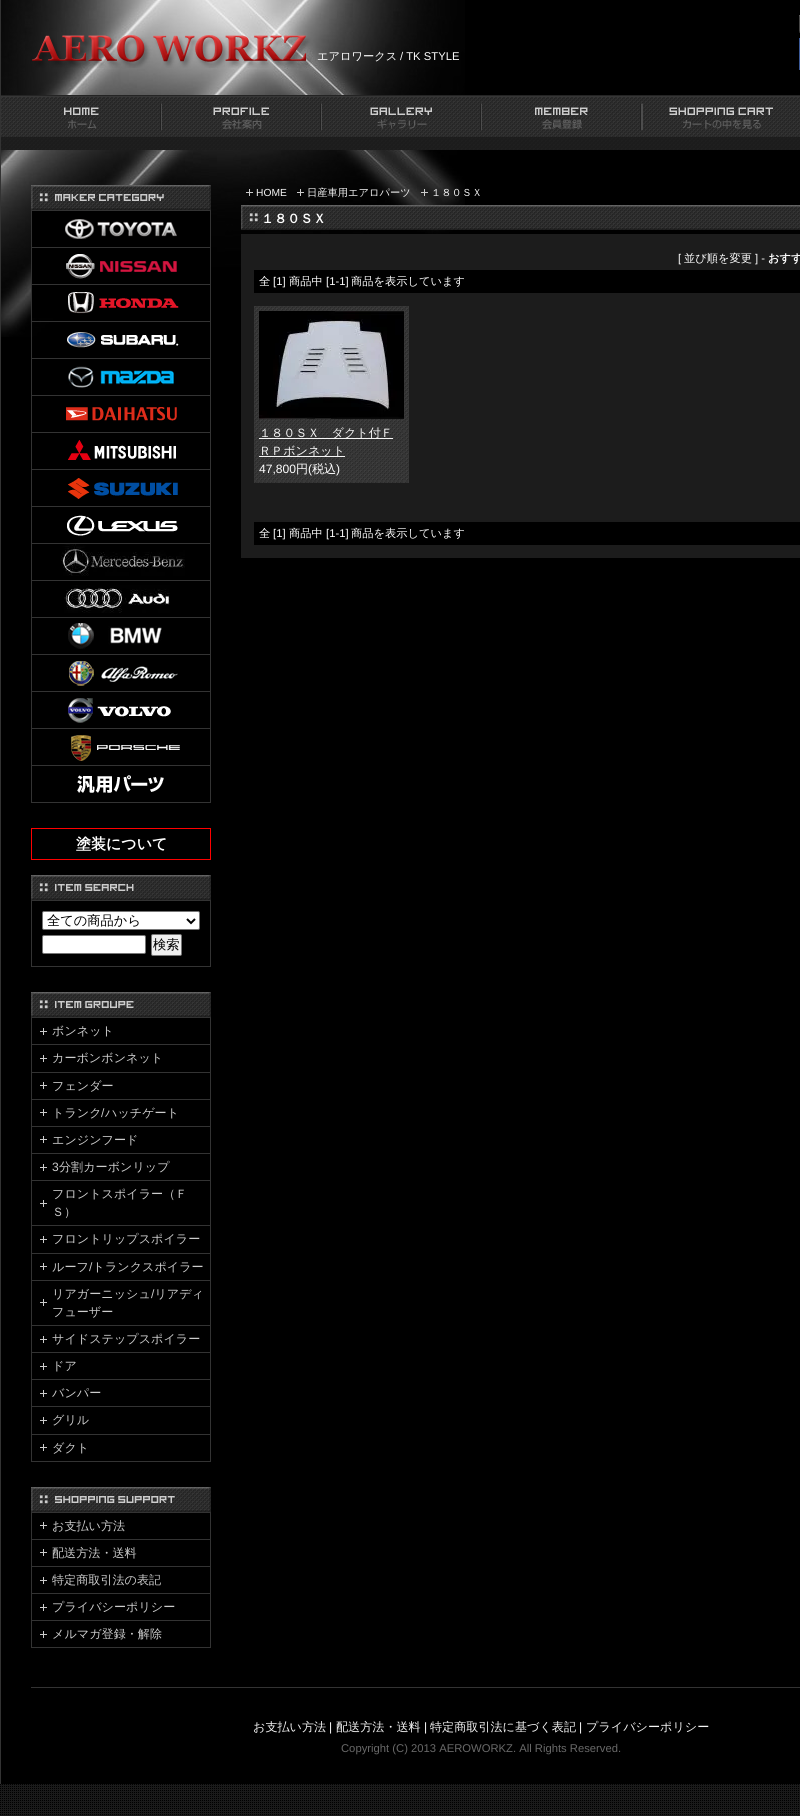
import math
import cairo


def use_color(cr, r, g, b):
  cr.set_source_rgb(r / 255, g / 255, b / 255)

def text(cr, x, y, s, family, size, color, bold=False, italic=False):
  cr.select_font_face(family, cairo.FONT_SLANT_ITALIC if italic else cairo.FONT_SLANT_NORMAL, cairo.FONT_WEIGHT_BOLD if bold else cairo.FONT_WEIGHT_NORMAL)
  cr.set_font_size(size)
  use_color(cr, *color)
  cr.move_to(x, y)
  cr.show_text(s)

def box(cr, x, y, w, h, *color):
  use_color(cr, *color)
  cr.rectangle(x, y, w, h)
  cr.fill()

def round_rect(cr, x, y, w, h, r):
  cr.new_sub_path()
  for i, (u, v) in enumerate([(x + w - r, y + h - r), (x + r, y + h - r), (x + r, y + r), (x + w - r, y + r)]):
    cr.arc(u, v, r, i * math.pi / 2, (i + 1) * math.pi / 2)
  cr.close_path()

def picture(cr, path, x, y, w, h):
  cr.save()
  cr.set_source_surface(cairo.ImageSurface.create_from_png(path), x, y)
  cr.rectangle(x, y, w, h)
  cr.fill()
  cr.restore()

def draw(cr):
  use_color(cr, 255, 255, 255)
  cr.paint()
  picture(cr, "img_01.png", 0, 1784, 800, 32)
  box(cr, 1, 0, 799, 1784, 0, 0, 0)
  picture(cr, "img_02.png", 1, 0, 464, 337)
  box(cr, 0, 0, 1, 1784, 51, 51, 51)
  picture(cr, "img_03.png", 32, 35, 280, 33)
  picture(cr, "img_04.png", 799, 15, 1, 18)
  box(cr, 799, 38, 1, 32, 59, 89, 152)
  picture(cr, "img_05.png", 1, 95, 160, 55)
  picture(cr, "img_06.png", 161, 95, 160, 55)
  picture(cr, "img_07.png", 321, 95, 160, 55)
  picture(cr, "img_08.png", 481, 95, 160, 55)
  picture(cr, "img_09.png", 641, 95, 159, 55)
  picture(cr, "img_10.png", 246, 189, 7, 7)
  picture(cr, "img_11.png", 297, 189, 7, 7)
  picture(cr, "img_12.png", 421, 189, 7, 7)
  picture(cr, "img_13.png", 241, 205, 559, 25)
  box(cr, 241, 234, 559, 324, 28, 28, 28)
  box(cr, 254, 270, 546, 23, 0, 0, 0)
  picture(cr, "img_14.png", 254, 306, 155, 177)
  picture(cr, "img_15.png", 259, 311, 145, 108)
  box(cr, 259, 438, 134, 1, 245, 245, 245)
  box(cr, 259, 456, 86, 1, 245, 245, 245)
  box(cr, 254, 522, 546, 23, 0, 0, 0)
  picture(cr, "img_16.png", 31, 185, 180, 25)
  box(cr, 32, 211, 178, 107, 0, 0, 0)
  box(cr, 31, 210, 180, 1, 51, 51, 51)
  box(cr, 210, 210, 1, 593, 51, 51, 51)
  box(cr, 31, 210, 1, 593, 51, 51, 51)
  box(cr, 32, 247, 178, 1, 51, 51, 51)
  picture(cr, "img_17.png", 65, 219, 112, 20)
  box(cr, 32, 284, 178, 1, 51, 51, 51)
  picture(cr, "img_18.png", 66, 254, 111, 25)
  box(cr, 32, 321, 178, 1, 51, 51, 51)
  picture(cr, "img_19.png", 68, 292, 111, 22)
  box(cr, 32, 358, 178, 1, 51, 51, 51)
  picture(cr, "img_20.png", 67, 332, 112, 16)
  box(cr, 32, 395, 178, 1, 51, 51, 51)
  picture(cr, "img_21.png", 68, 366, 106, 22)
  box(cr, 32, 432, 178, 1, 51, 51, 51)
  picture(cr, "img_22.png", 66, 407, 111, 14)
  box(cr, 32, 469, 178, 1, 51, 51, 51)
  picture(cr, "img_23.png", 68, 440, 108, 20)
  box(cr, 32, 506, 178, 1, 51, 51, 51)
  picture(cr, "img_24.png", 68, 478, 110, 21)
  box(cr, 32, 543, 178, 1, 51, 51, 51)
  picture(cr, "img_25.png", 67, 515, 111, 21)
  box(cr, 32, 580, 178, 1, 51, 51, 51)
  picture(cr, "img_26.png", 61, 544, 124, 32)
  box(cr, 32, 617, 178, 1, 51, 51, 51)
  picture(cr, "img_27.png", 64, 585, 106, 28)
  box(cr, 32, 654, 178, 1, 51, 51, 51)
  picture(cr, "img_28.png", 68, 623, 94, 26)
  box(cr, 32, 691, 178, 1, 51, 51, 51)
  picture(cr, "img_29.png", 69, 661, 109, 25)
  box(cr, 32, 728, 178, 1, 51, 51, 51)
  picture(cr, "img_30.png", 68, 698, 103, 25)
  box(cr, 32, 765, 178, 1, 51, 51, 51)
  picture(cr, "img_31.png", 71, 735, 109, 26)
  box(cr, 32, 802, 178, 1, 51, 51, 51)
  picture(cr, "img_32.png", 77, 775, 87, 18)
  cr.rectangle(31.5, 828.5, 179, 31)
  use_color(cr, 255, 0, 0)
  cr.set_line_width(1)
  cr.stroke()
  picture(cr, "img_33.png", 31, 875, 180, 25)
  cr.rectangle(31.5, 900.5, 179, 66)
  use_color(cr, 51, 51, 51)
  cr.stroke()
  use_color(cr, 255, 255, 255)
  round_rect(cr, 42.5, 911.5, 157, 18, 1.5)
  cr.fill_preserve()
  use_color(cr, 118, 118, 118)
  cr.stroke()
  cr.new_path()
  cr.move_to(187, 919)
  cr.line_to(191, 923)
  cr.line_to(195, 919)
  use_color(cr, 0, 0, 0)
  cr.set_line_width(2)
  cr.stroke()
  use_color(cr, 255, 255, 255)
  round_rect(cr, 42.5, 935.5, 103, 18, 1.5)
  cr.fill_preserve()
  use_color(cr, 118, 118, 118)
  cr.set_line_width(1)
  cr.stroke()
  use_color(cr, 239, 239, 239)
  round_rect(cr, 151.5, 934.5, 30, 21, 1.5)
  cr.fill_preserve()
  use_color(cr, 118, 118, 118)
  cr.stroke()
  picture(cr, "img_34.png", 31, 992, 180, 25)
  box(cr, 31, 1017, 180, 1, 51, 51, 51)
  box(cr, 210, 1017, 1, 445, 51, 51, 51)
  box(cr, 31, 1017, 1, 445, 51, 51, 51)
  box(cr, 32, 1044, 178, 1, 51, 51, 51)
  picture(cr, "img_35.png", 40, 1028, 7, 7)
  box(cr, 32, 1072, 178, 1, 51, 51, 51)
  picture(cr, "img_35.png", 40, 1055, 7, 7)
  box(cr, 32, 1099, 178, 1, 51, 51, 51)
  picture(cr, "img_35.png", 40, 1082, 7, 7)
  box(cr, 32, 1126, 178, 1, 51, 51, 51)
  picture(cr, "img_35.png", 40, 1109, 7, 7)
  box(cr, 32, 1153, 178, 1, 51, 51, 51)
  picture(cr, "img_35.png", 40, 1136, 7, 7)
  box(cr, 32, 1180, 178, 1, 51, 51, 51)
  picture(cr, "img_35.png", 40, 1164, 7, 7)
  box(cr, 32, 1225, 178, 1, 51, 51, 51)
  picture(cr, "img_35.png", 40, 1200, 7, 7)
  box(cr, 32, 1253, 178, 1, 51, 51, 51)
  picture(cr, "img_35.png", 40, 1236, 7, 7)
  box(cr, 32, 1280, 178, 1, 51, 51, 51)
  picture(cr, "img_35.png", 40, 1263, 7, 7)
  box(cr, 32, 1325, 178, 1, 51, 51, 51)
  picture(cr, "img_35.png", 40, 1299, 7, 7)
  box(cr, 32, 1352, 178, 1, 51, 51, 51)
  picture(cr, "img_35.png", 40, 1336, 7, 7)
  box(cr, 32, 1379, 178, 1, 51, 51, 51)
  picture(cr, "img_35.png", 40, 1363, 7, 7)
  box(cr, 32, 1406, 178, 1, 51, 51, 51)
  picture(cr, "img_35.png", 40, 1390, 7, 7)
  box(cr, 32, 1434, 178, 1, 51, 51, 51)
  picture(cr, "img_35.png", 40, 1417, 7, 7)
  box(cr, 32, 1461, 178, 1, 51, 51, 51)
  picture(cr, "img_35.png", 40, 1444, 7, 7)
  picture(cr, "img_36.png", 31, 1487, 180, 25)
  box(cr, 31, 1512, 180, 1, 51, 51, 51)
  box(cr, 210, 1512, 1, 136, 51, 51, 51)
  box(cr, 31, 1512, 1, 136, 51, 51, 51)
  box(cr, 32, 1539, 178, 1, 51, 51, 51)
  picture(cr, "img_35.png", 40, 1522, 7, 7)
  box(cr, 32, 1566, 178, 1, 51, 51, 51)
  picture(cr, "img_35.png", 40, 1549, 7, 7)
  box(cr, 32, 1593, 178, 1, 51, 51, 51)
  picture(cr, "img_35.png", 40, 1577, 7, 7)
  box(cr, 32, 1620, 178, 1, 51, 51, 51)
  picture(cr, "img_35.png", 40, 1604, 7, 7)
  box(cr, 32, 1647, 178, 1, 51, 51, 51)
  picture(cr, "img_35.png", 40, 1631, 7, 7)
  box(cr, 31, 1687, 769, 1, 51, 51, 51)
  text(cr, 317, 60, "エアロワークス", "WenQuanYi Zen Hei Medium", 11.25, (255, 255, 255))
  text(cr, 400, 60, "/ TK STYLE", "Liberation Sans", 11.25, (255, 255, 255))
  text(cr, 256, 196, "HOME", "Liberation Sans", 10.25, (245, 245, 245))
  text(cr, 307, 196, "日産車用エアロパーツ", "WenQuanYi Zen Hei Medium", 10.25, (245, 245, 245))
  text(cr, 431, 196, "１８０ＳＸ", "WenQuanYi Zen Hei Medium", 10.25, (245, 245, 245))
  text(cr, 261, 223, "１８０ＳＸ", "WenQuanYi Zen Hei", 13, (255, 255, 255), bold=True)
  text(cr, 678, 262, "[", "Liberation Sans", 11.25, (255, 255, 255))
  text(cr, 684, 262, "並び順を変更", "WenQuanYi Zen Hei Medium", 11.25, (255, 255, 255))
  text(cr, 755, 262, "] -", "Liberation Sans", 11.25, (255, 255, 255))
  text(cr, 768, 262, "おすす", "WenQuanYi Zen Hei", 11.25, (255, 255, 255), bold=True)
  text(cr, 259, 285, "全", "WenQuanYi Zen Hei Medium", 11.25, (255, 255, 255))
  text(cr, 273, 285, "[1]", "Liberation Sans", 11.25, (255, 255, 255))
  text(cr, 289, 285, "商品中", "WenQuanYi Zen Hei Medium", 11.25, (255, 255, 255))
  text(cr, 326, 285, "[1-1]", "Liberation Sans", 11.25, (255, 255, 255))
  text(cr, 351, 285, "商品を表示しています", "WenQuanYi Zen Hei Medium", 11.25, (255, 255, 255))
  text(cr, 259, 437, "１８０ＳＸ　ダクト付Ｆ", "WenQuanYi Zen Hei Medium", 12.1, (245, 245, 245))
  text(cr, 259, 455, "ＲＰボンネット", "WenQuanYi Zen Hei Medium", 12.1, (245, 245, 245))
  text(cr, 259, 473, "47,800", "Liberation Sans", 12.1, (255, 255, 255))
  text(cr, 296, 473, "円", "WenQuanYi Zen Hei Medium", 12.1, (255, 255, 255))
  text(cr, 308, 473, "(", "Liberation Sans", 12.1, (255, 255, 255))
  text(cr, 312, 473, "税込", "WenQuanYi Zen Hei Medium", 12.1, (255, 255, 255))
  text(cr, 336, 473, ")", "Liberation Sans", 12.1, (255, 255, 255))
  text(cr, 259, 537, "全", "WenQuanYi Zen Hei Medium", 11.25, (255, 255, 255))
  text(cr, 273, 537, "[1]", "Liberation Sans", 11.25, (255, 255, 255))
  text(cr, 289, 537, "商品中", "WenQuanYi Zen Hei Medium", 11.25, (255, 255, 255))
  text(cr, 326, 537, "[1-1]", "Liberation Sans", 11.25, (255, 255, 255))
  text(cr, 351, 537, "商品を表示しています", "WenQuanYi Zen Hei Medium", 11.25, (255, 255, 255))
  text(cr, 76, 849, "塗装について", "WenQuanYi Zen Hei", 15, (255, 255, 255), bold=True)
  text(cr, 47, 925, "全ての商品から", "WenQuanYi Zen Hei Medium", 13.25, (0, 0, 0))
  text(cr, 153, 949, "検索", "WenQuanYi Zen Hei Medium", 13.25, (0, 0, 0))
  text(cr, 52, 1035, "ボンネット", "WenQuanYi Zen Hei Medium", 12.1, (204, 204, 204))
  text(cr, 52, 1062, "カーボンボンネット", "WenQuanYi Zen Hei Medium", 12.1, (204, 204, 204))
  text(cr, 52, 1090, "フェンダー", "WenQuanYi Zen Hei Medium", 12.1, (204, 204, 204))
  text(cr, 52, 1117, "トランク", "WenQuanYi Zen Hei Medium", 12.1, (204, 204, 204))
  text(cr, 101, 1117, "/", "Liberation Sans", 12.1, (204, 204, 204))
  text(cr, 105, 1117, "ハッチゲート", "WenQuanYi Zen Hei Medium", 12.1, (204, 204, 204))
  text(cr, 52, 1144, "エンジンフード", "WenQuanYi Zen Hei Medium", 12.1, (204, 204, 204))
  text(cr, 52, 1171, "3", "Liberation Sans", 12.1, (204, 204, 204))
  text(cr, 59, 1171, "分割カーボンリップ", "WenQuanYi Zen Hei Medium", 12.1, (204, 204, 204))
  text(cr, 52, 1198, "フロントスポイラー（Ｆ", "WenQuanYi Zen Hei Medium", 12.1, (204, 204, 204))
  text(cr, 52, 1216, "Ｓ）", "WenQuanYi Zen Hei Medium", 12.1, (204, 204, 204))
  text(cr, 52, 1243, "フロントリップスポイラー", "WenQuanYi Zen Hei Medium", 12.1, (204, 204, 204))
  text(cr, 52, 1271, "ルーフ トランクスポイラー", "WenQuanYi Zen Hei Medium", 12.1, (204, 204, 204))
  text(cr, 89, 1271, "/", "Liberation Sans", 12.1, (204, 204, 204))
  text(cr, 52, 1298, "リアガーニッシュ リアディ", "WenQuanYi Zen Hei Medium", 12.1, (204, 204, 204))
  text(cr, 151, 1298, "/", "Liberation Sans", 12.1, (204, 204, 204))
  text(cr, 52, 1316, "フューザー", "WenQuanYi Zen Hei Medium", 12.1, (204, 204, 204))
  text(cr, 52, 1343, "サイドステップスポイラー", "WenQuanYi Zen Hei Medium", 12.1, (204, 204, 204))
  text(cr, 52, 1370, "ドア", "WenQuanYi Zen Hei Medium", 12.1, (204, 204, 204))
  text(cr, 52, 1397, "バンパー", "WenQuanYi Zen Hei Medium", 12.1, (204, 204, 204))
  text(cr, 52, 1424, "グリル", "WenQuanYi Zen Hei Medium", 12.1, (204, 204, 204))
  text(cr, 52, 1452, "ダクト", "WenQuanYi Zen Hei Medium", 12.1, (204, 204, 204))
  text(cr, 52, 1530, "お支払い方法", "WenQuanYi Zen Hei Medium", 12.1, (204, 204, 204))
  text(cr, 52, 1557, "配送方法・送料", "WenQuanYi Zen Hei Medium", 12.1, (204, 204, 204))
  text(cr, 52, 1584, "特定商取引法の表記", "WenQuanYi Zen Hei Medium", 12.1, (204, 204, 204))
  text(cr, 52, 1611, "プライバシーポリシー", "WenQuanYi Zen Hei Medium", 12.1, (204, 204, 204))
  text(cr, 52, 1638, "メルマガ登録・解除", "WenQuanYi Zen Hei Medium", 12.1, (204, 204, 204))
  text(cr, 253, 1731, "お支払い方法", "WenQuanYi Zen Hei Medium", 12.1, (245, 245, 245))
  text(cr, 329, 1731, "|", "Liberation Sans", 12.1, (255, 255, 255))
  text(cr, 336, 1731, "配送方法・送料", "WenQuanYi Zen Hei Medium", 12.1, (245, 245, 245))
  text(cr, 424, 1731, "|", "Liberation Sans", 12.1, (255, 255, 255))
  text(cr, 430, 1731, "特定商取引法に基づく表記", "WenQuanYi Zen Hei Medium", 12.1, (245, 245, 245))
  text(cr, 579, 1731, "|", "Liberation Sans", 12.1, (255, 255, 255))
  text(cr, 586, 1731, "プライバシーポリシー", "WenQuanYi Zen Hei Medium", 12.1, (245, 245, 245))
  text(cr, 341, 1752, "Copyright (C) 2013 AEROWORKZ. All Rights Reserved.", "Liberation Sans", 11.25, (105, 105, 105))


surface = cairo.ImageSurface(cairo.FORMAT_RGB24, 800, 1816)
cr = cairo.Context(surface)
options = cairo.FontOptions()
options.set_hint_metrics(cairo.HINT_METRICS_OFF)
options.set_hint_style(cairo.HINT_STYLE_NONE)
cr.set_font_options(options)
cr.set_miter_limit(4)
draw(cr)
surface.write_to_png("out.png")
